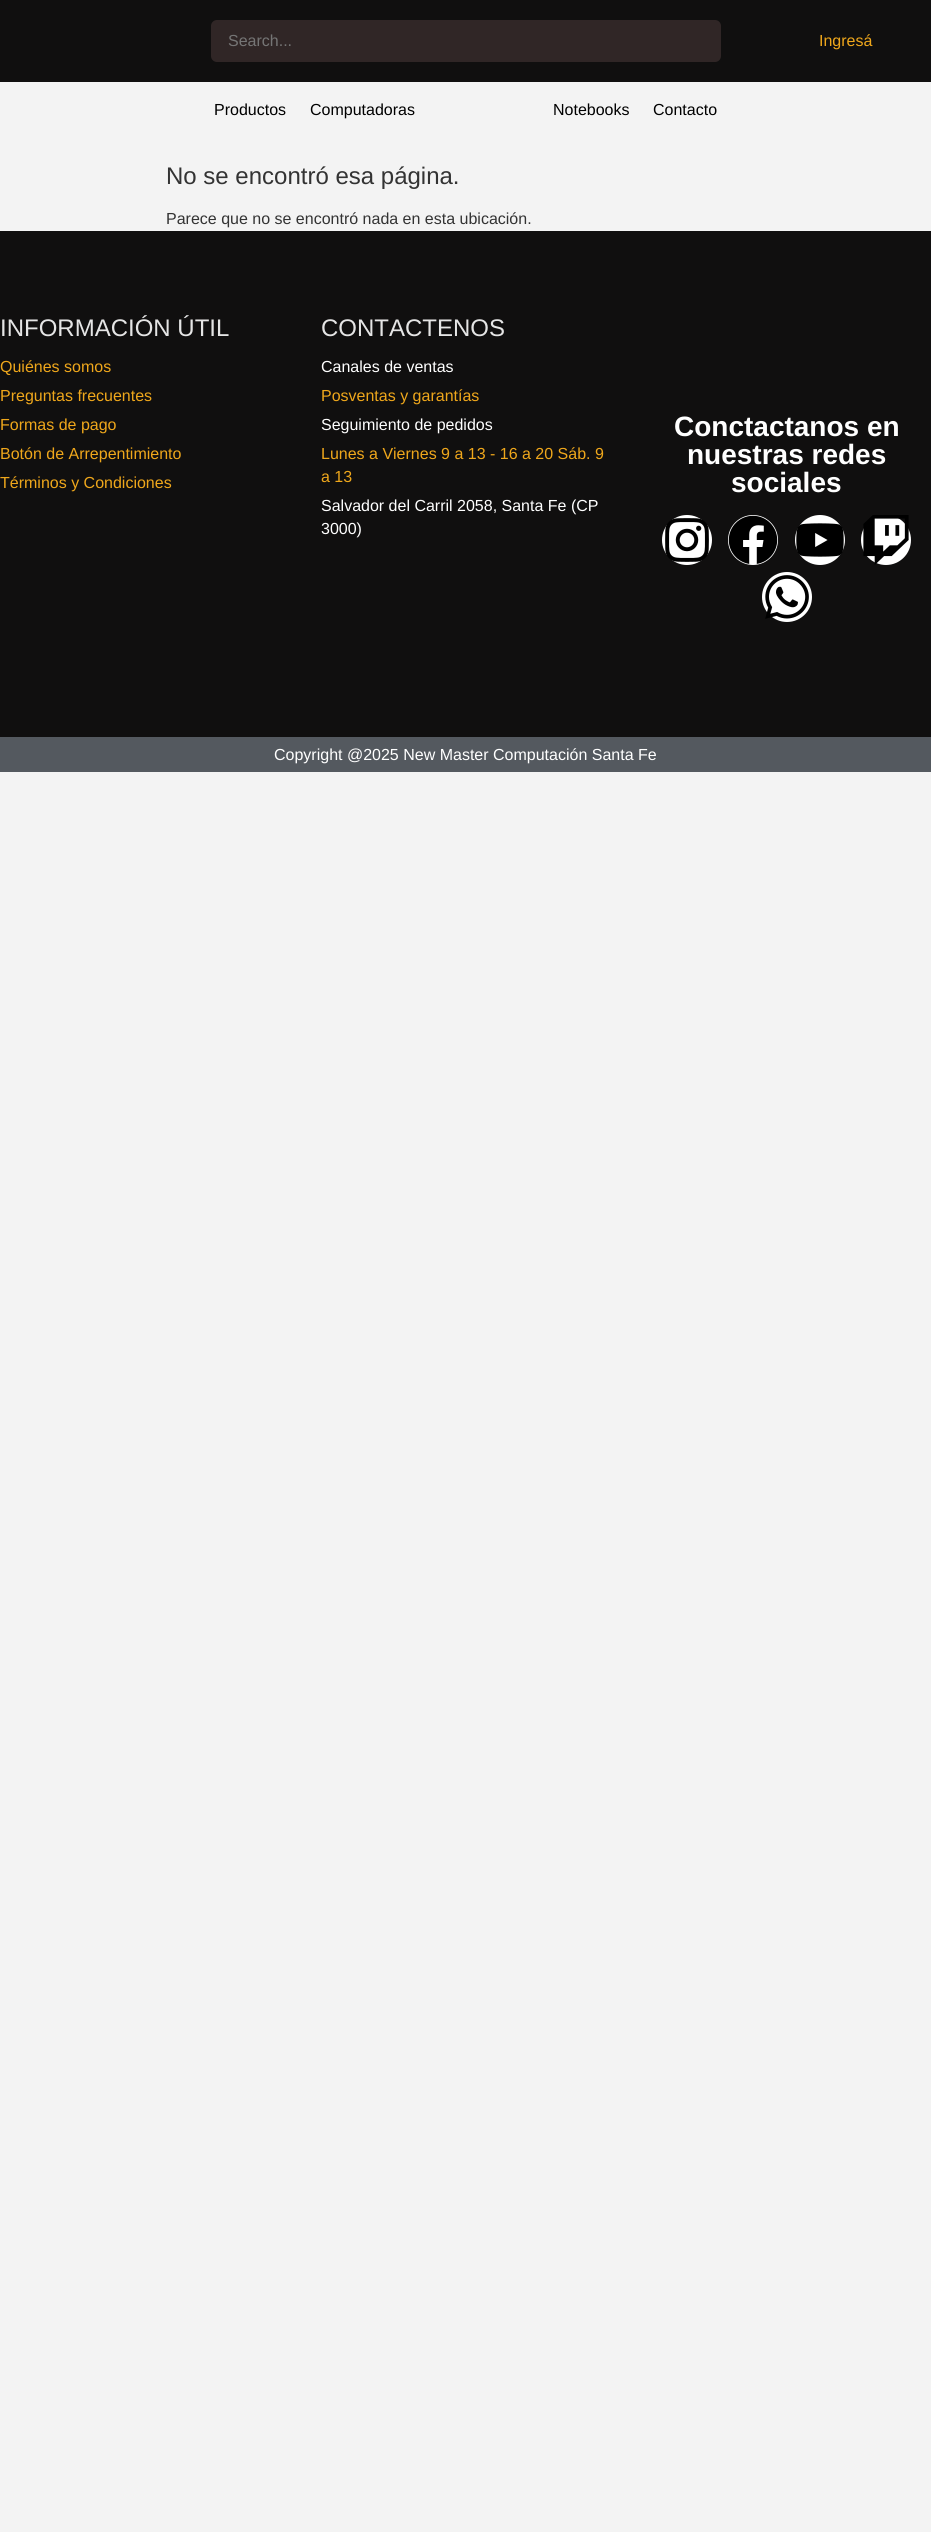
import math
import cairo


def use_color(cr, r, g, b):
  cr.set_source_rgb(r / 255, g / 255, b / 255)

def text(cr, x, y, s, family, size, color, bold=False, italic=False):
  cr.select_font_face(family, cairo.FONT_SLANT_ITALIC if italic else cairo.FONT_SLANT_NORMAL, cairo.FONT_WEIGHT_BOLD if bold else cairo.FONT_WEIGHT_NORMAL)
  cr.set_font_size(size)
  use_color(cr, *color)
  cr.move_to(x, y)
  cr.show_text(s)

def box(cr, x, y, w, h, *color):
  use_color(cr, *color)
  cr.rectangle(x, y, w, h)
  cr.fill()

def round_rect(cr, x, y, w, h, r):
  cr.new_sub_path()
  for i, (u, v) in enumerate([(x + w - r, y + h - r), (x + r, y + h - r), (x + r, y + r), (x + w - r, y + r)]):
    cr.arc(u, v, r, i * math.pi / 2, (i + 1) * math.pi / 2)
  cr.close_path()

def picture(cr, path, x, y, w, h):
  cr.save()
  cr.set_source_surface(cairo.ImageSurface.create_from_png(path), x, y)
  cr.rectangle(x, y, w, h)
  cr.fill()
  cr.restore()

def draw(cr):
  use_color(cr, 243, 243, 243)
  cr.paint()
  box(cr, 0, 0, 931, 82, 16, 15, 15)
  use_color(cr, 48, 38, 38)
  round_rect(cr, 211, 20, 510, 42, 6)
  cr.fill()
  box(cr, 0, 231, 931, 506, 16, 15, 15)
  use_color(cr, 255, 255, 255)
  cr.arc(687, 540, 25, 0, 2 * math.pi)
  cr.fill()
  picture(cr, "img_01.png", 665, 518, 44, 44)
  cr.arc(753, 540, 25, 0, 2 * math.pi)
  cr.fill()
  picture(cr, "img_02.png", 728, 515, 50, 49)
  cr.arc(820, 540, 25, 0, 2 * math.pi)
  cr.fill()
  picture(cr, "img_03.png", 796, 523, 48, 34)
  cr.arc(886, 540, 25, 0, 2 * math.pi)
  cr.fill()
  picture(cr, "img_04.png", 863, 515, 46, 50)
  cr.arc(787, 597, 25, 0, 2 * math.pi)
  cr.fill()
  picture(cr, "img_05.png", 765, 575, 44, 44)
  box(cr, 0, 737, 931, 35, 84, 89, 95)
  text(cr, 228, 46, "Search...", "Liberation Sans", 16, (117, 117, 117))
  text(cr, 819, 46, "Ingresá", "Liberation Sans", 16, (239, 167, 27))
  text(cr, 214, 115, "Productos", "Liberation Sans", 16, (0, 0, 0))
  text(cr, 310, 115, "Computadoras", "Liberation Sans", 16, (0, 0, 0))
  text(cr, 553, 115, "Notebooks", "Liberation Sans", 16, (0, 0, 0))
  text(cr, 653, 115, "Contacto", "Liberation Sans", 16, (0, 0, 0))
  text(cr, 166, 184, "No se encontró esa página.", "Liberation Sans", 24, (51, 51, 51))
  text(cr, 166, 224, "Parece que no se encontró nada en esta ubicación.", "Liberation Sans", 16, (51, 51, 51))
  text(cr, 0, 336, "INFORMACIÓN ÚTIL", "Liberation Sans", 24, (229, 229, 229))
  text(cr, 0, 372, "Quiénes somos", "Liberation Sans", 16, (239, 167, 27))
  text(cr, 0, 401, "Preguntas frecuentes", "Liberation Sans", 16, (239, 167, 27))
  text(cr, 0, 430, "Formas de pago", "Liberation Sans", 16, (239, 167, 27))
  text(cr, 0, 459, "Botón de Arrepentimiento", "Liberation Sans", 16, (239, 167, 27))
  text(cr, 0, 488, "Términos y Condiciones", "Liberation Sans", 16, (239, 167, 27))
  text(cr, 321, 336, "CONTACTENOS", "Liberation Sans", 24, (229, 229, 229))
  text(cr, 321, 372, "Canales de ventas", "Liberation Sans", 16, (255, 255, 255))
  text(cr, 321, 401, "Posventas y garantías", "Liberation Sans", 16, (239, 167, 27))
  text(cr, 321, 430, "Seguimiento de pedidos", "Liberation Sans", 16, (255, 255, 255))
  text(cr, 321, 459, "Lunes a Viernes 9 a 13 - 16 a 20 Sáb. 9", "Liberation Sans", 16, (239, 167, 27))
  text(cr, 321, 482, "a 13", "Liberation Sans", 16, (239, 167, 27))
  text(cr, 321, 511, "Salvador del Carril 2058, Santa Fe (CP", "Liberation Sans", 16, (255, 255, 255))
  text(cr, 321, 534, "3000)", "Liberation Sans", 16, (255, 255, 255))
  text(cr, 674, 436, "Conctactanos en", "Liberation Sans", 28, (255, 255, 255), bold=True)
  text(cr, 687, 464, "nuestras redes", "Liberation Sans", 28, (255, 255, 255), bold=True)
  text(cr, 731, 492, "sociales", "Liberation Sans", 28, (255, 255, 255), bold=True)
  text(cr, 274, 760, "Copyright @2025 New Master Computación Santa Fe", "Liberation Sans", 16, (255, 255, 255))


surface = cairo.ImageSurface(cairo.FORMAT_RGB24, 931, 2532)
cr = cairo.Context(surface)
options = cairo.FontOptions()
options.set_hint_metrics(cairo.HINT_METRICS_OFF)
options.set_hint_style(cairo.HINT_STYLE_NONE)
cr.set_font_options(options)
cr.set_miter_limit(4)
draw(cr)
surface.write_to_png("out.png")
